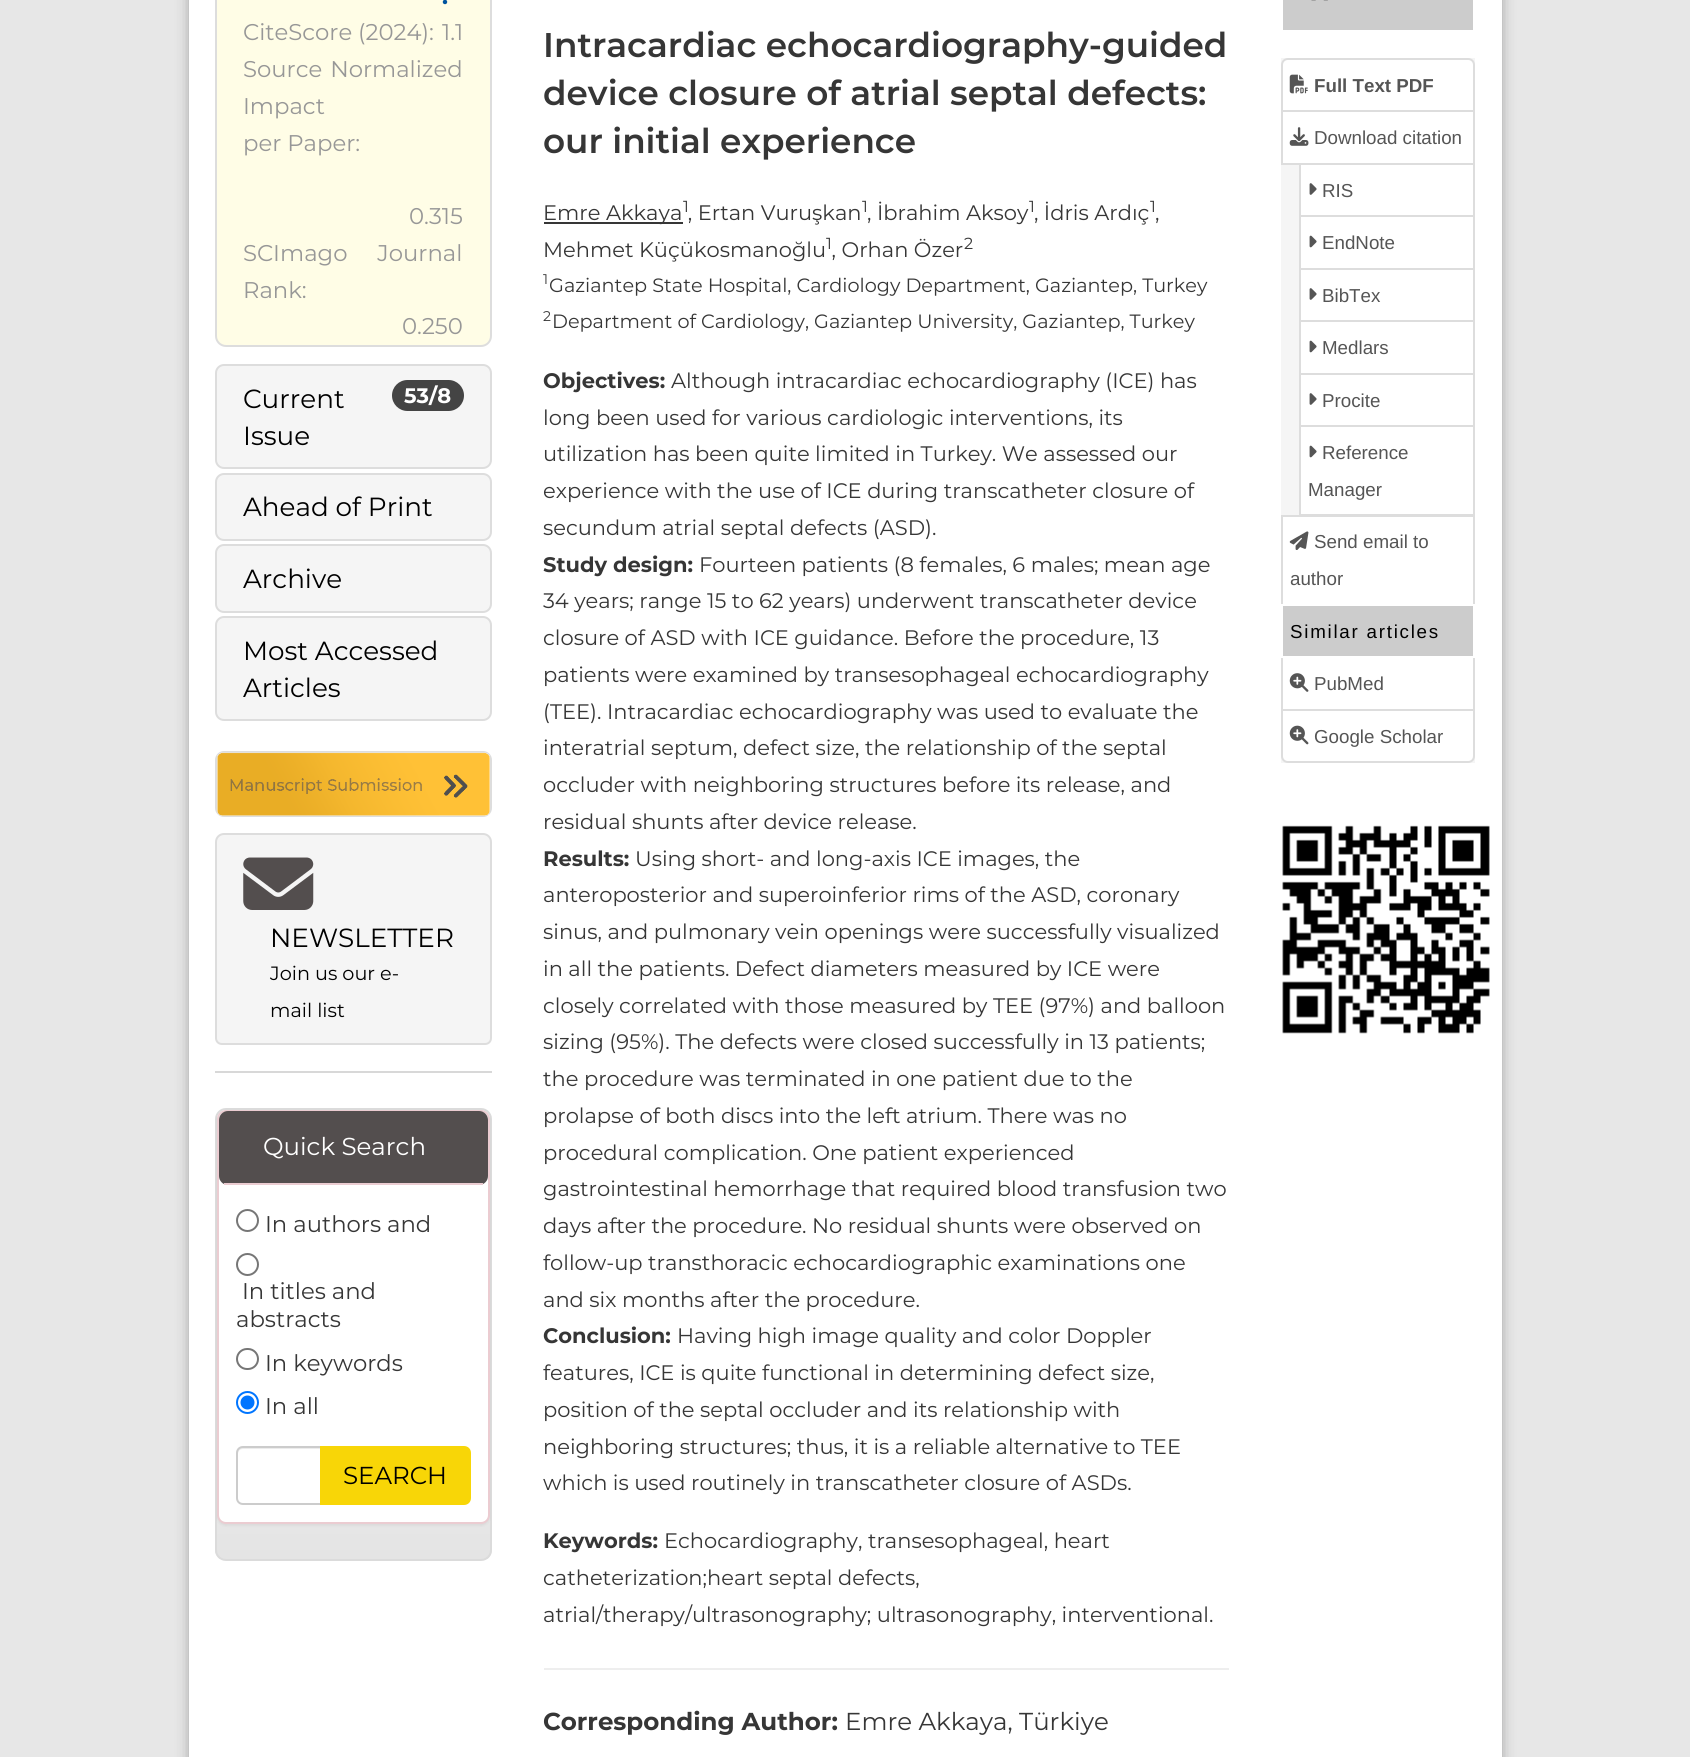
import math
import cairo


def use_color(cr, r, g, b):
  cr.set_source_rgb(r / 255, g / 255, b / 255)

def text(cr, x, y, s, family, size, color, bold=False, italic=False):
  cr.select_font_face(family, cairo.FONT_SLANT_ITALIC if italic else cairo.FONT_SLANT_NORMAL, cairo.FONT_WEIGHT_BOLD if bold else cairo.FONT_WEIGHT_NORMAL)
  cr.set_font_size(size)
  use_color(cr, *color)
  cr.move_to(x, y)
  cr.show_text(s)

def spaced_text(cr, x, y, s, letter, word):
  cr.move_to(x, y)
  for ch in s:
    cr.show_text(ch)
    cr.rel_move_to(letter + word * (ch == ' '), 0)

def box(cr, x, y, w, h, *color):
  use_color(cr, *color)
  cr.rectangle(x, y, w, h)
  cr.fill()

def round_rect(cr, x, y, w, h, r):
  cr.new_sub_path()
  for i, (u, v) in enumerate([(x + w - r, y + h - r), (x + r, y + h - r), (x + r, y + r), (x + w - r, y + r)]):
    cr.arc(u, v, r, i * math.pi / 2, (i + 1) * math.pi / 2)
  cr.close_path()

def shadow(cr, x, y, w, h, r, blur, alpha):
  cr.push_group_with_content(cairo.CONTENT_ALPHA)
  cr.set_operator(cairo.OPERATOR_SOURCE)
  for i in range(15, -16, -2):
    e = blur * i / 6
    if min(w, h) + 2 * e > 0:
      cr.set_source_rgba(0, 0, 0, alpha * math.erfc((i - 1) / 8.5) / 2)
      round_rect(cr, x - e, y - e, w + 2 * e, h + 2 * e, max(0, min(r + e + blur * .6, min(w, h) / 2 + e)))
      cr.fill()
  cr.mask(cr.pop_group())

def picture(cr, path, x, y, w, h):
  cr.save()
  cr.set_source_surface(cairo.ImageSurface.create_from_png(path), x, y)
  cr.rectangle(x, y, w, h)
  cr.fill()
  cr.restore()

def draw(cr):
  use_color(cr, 231, 231, 231)
  cr.paint()
  use_color(cr, 0, 0, 0)
  shadow(cr, 196, -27, 1299, 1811, 0, 9, 0.71)
  box(cr, 189, 0, 1313, 1757, 255, 255, 255)
  use_color(cr, 255, 253, 230)
  round_rect(cr, 216, -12, 275, 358, 10)
  cr.fill_preserve()
  use_color(cr, 221, 221, 221)
  cr.stroke()
  box(cr, 215, 1071, 277, 2, 216, 216, 216)
  use_color(cr, 245, 245, 245)
  round_rect(cr, 216, 365, 275, 103, 8)
  cr.fill_preserve()
  use_color(cr, 221, 221, 221)
  cr.stroke()
  use_color(cr, 68, 68, 68)
  round_rect(cr, 392, 380, 72, 31, 15.5)
  cr.fill()
  use_color(cr, 245, 245, 245)
  round_rect(cr, 216, 474, 275, 66, 8)
  cr.fill_preserve()
  use_color(cr, 221, 221, 221)
  cr.stroke()
  use_color(cr, 245, 245, 245)
  round_rect(cr, 216, 545, 275, 67, 8)
  cr.fill_preserve()
  use_color(cr, 221, 221, 221)
  cr.stroke()
  use_color(cr, 245, 245, 245)
  round_rect(cr, 216, 617, 275, 103, 8)
  cr.fill_preserve()
  use_color(cr, 221, 221, 221)
  cr.stroke()
  round_rect(cr, 216, 752, 275, 64, 8)
  cr.stroke()
  picture(cr, "img_01.png", 217, 752, 273, 64)
  use_color(cr, 245, 245, 245)
  cr.new_path()
  cr.move_to(224, 834)
  cr.line_to(483, 834)
  cr.curve_to(487.5, 834, 491, 837.5, 491, 842)
  cr.line_to(491, 1038)
  cr.curve_to(491, 1041.5, 488.5, 1044, 485, 1044)
  cr.line_to(222, 1044)
  cr.curve_to(218.5, 1044, 216, 1041.5, 216, 1038)
  cr.line_to(216, 842)
  cr.curve_to(216, 837.5, 219.5, 834, 224, 834)
  cr.close_path()
  cr.fill_preserve()
  use_color(cr, 221, 221, 221)
  cr.stroke()
  picture(cr, "img_02.png", 243, 857, 71, 53)
  cr.save()
  round_rect(cr, 215, 1108, 277, 453, 11)
  cr.clip()
  gradient = cairo.LinearGradient(354, 1559, 354, 1110)
  gradient.add_color_stop_rgba(0, 0.894, 0.894, 0.894, 1)
  gradient.add_color_stop_rgba(1, 1, 1, 1, 1)
  cr.set_source(gradient)
  cr.rectangle(215, 1110, 277, 449)
  cr.fill()
  cr.restore()
  round_rect(cr, 216, 1109, 275, 451, 10)
  use_color(cr, 219, 219, 219)
  cr.stroke()
  use_color(cr, 0, 0, 0)
  shadow(cr, 217, 1111, 273, 415, 9, 1, 0.05)
  use_color(cr, 255, 255, 255)
  round_rect(cr, 218, 1111, 271, 412, 8)
  cr.fill_preserve()
  use_color(cr, 235, 204, 209)
  cr.stroke()
  use_color(cr, 83, 78, 78)
  round_rect(cr, 219, 1111, 269, 74, 9)
  cr.fill()
  box(cr, 224, 1183, 259, 2, 235, 204, 209)
  cr.arc(247.5, 1220.5, 10.5, 0, 2 * math.pi)
  use_color(cr, 118, 118, 118)
  cr.stroke()
  cr.arc(247.5, 1264.5, 10.5, 0, 2 * math.pi)
  cr.stroke()
  round_rect(cr, 237, 1349, 21, 20, 10)
  cr.stroke()
  cr.arc(247.5, 1402.5, 10.5, 0, 2 * math.pi)
  use_color(cr, 0, 117, 255)
  cr.stroke()
  cr.arc(247.5, 1402.5, 7, 0, 2 * math.pi)
  cr.fill()
  use_color(cr, 236, 236, 236)
  cr.new_path()
  cr.move_to(243, 1449)
  cr.line_to(320, 1449)
  cr.line_to(320, 1447)
  cr.line_to(243, 1447)
  cr.curve_to(240, 1447, 238, 1449, 238, 1452)
  cr.line_to(238, 1454)
  cr.curve_to(238, 1451, 240, 1449, 243, 1449)
  cr.close_path()
  cr.fill()
  cr.new_path()
  cr.move_to(243, 1447)
  cr.line_to(321, 1447)
  cr.line_to(321, 1504)
  cr.line_to(243, 1504)
  cr.curve_to(239.5, 1504, 237, 1501.5, 237, 1498)
  cr.line_to(237, 1453)
  cr.curve_to(237, 1449.5, 239.5, 1447, 243, 1447)
  cr.close_path()
  use_color(cr, 204, 204, 204)
  cr.stroke()
  use_color(cr, 248, 214, 7)
  cr.new_path()
  cr.move_to(320, 1446)
  cr.line_to(464, 1446)
  cr.curve_to(468, 1446, 471, 1449, 471, 1453)
  cr.line_to(471, 1498)
  cr.curve_to(471, 1502, 468, 1505, 464, 1505)
  cr.line_to(320, 1505)
  cr.close_path()
  cr.fill()
  box(cr, 544, 222, 139, 2, 54, 54, 54)
  box(cr, 544, 1668, 685, 2, 238, 238, 238)
  box(cr, 1283, 0, 190, 30, 204, 204, 204)
  picture(cr, "img_03.png", 1311, 0, 17, 1)
  box(cr, 1281, 58, 194, 705, 245, 245, 245)
  use_color(cr, 255, 255, 255)
  cr.new_path()
  cr.move_to(1288, 59)
  cr.line_to(1468, 59)
  cr.curve_to(1471.5, 59, 1474, 61.5, 1474, 65)
  cr.line_to(1474, 111)
  cr.line_to(1282, 111)
  cr.line_to(1282, 65)
  cr.curve_to(1282, 61.5, 1284.5, 59, 1288, 59)
  cr.close_path()
  cr.fill_preserve()
  use_color(cr, 221, 221, 221)
  cr.stroke()
  picture(cr, "img_04.png", 1289, 74, 19, 20)
  use_color(cr, 255, 255, 255)
  cr.rectangle(1282, 111, 192, 53)
  cr.fill_preserve()
  use_color(cr, 221, 221, 221)
  cr.stroke()
  picture(cr, "img_05.png", 1289, 127, 20, 19)
  use_color(cr, 255, 255, 255)
  cr.rectangle(1300, 164, 174, 52)
  cr.fill_preserve()
  use_color(cr, 221, 221, 221)
  cr.stroke()
  picture(cr, "img_06.png", 1309, 183, 8, 12)
  use_color(cr, 255, 255, 255)
  cr.rectangle(1300, 216, 174, 53)
  cr.fill_preserve()
  use_color(cr, 221, 221, 221)
  cr.stroke()
  picture(cr, "img_07.png", 1309, 235, 8, 13)
  use_color(cr, 255, 255, 255)
  cr.rectangle(1300, 269, 174, 52)
  cr.fill_preserve()
  use_color(cr, 221, 221, 221)
  cr.stroke()
  picture(cr, "img_06.png", 1309, 288, 8, 12)
  use_color(cr, 255, 255, 255)
  cr.rectangle(1300, 321, 174, 53)
  cr.fill_preserve()
  use_color(cr, 221, 221, 221)
  cr.stroke()
  picture(cr, "img_07.png", 1309, 340, 8, 13)
  use_color(cr, 255, 255, 255)
  cr.rectangle(1300, 374, 174, 52)
  cr.fill_preserve()
  use_color(cr, 221, 221, 221)
  cr.stroke()
  picture(cr, "img_06.png", 1309, 393, 8, 12)
  use_color(cr, 255, 255, 255)
  cr.rectangle(1300, 426, 174, 89)
  cr.fill_preserve()
  use_color(cr, 221, 221, 221)
  cr.stroke()
  picture(cr, "img_07.png", 1309, 445, 8, 13)
  use_color(cr, 255, 255, 255)
  cr.rectangle(1282, 516, 192, 89)
  cr.fill_preserve()
  use_color(cr, 221, 221, 221)
  cr.stroke()
  picture(cr, "img_08.png", 1289, 531, 20, 19)
  use_color(cr, 255, 255, 255)
  cr.rectangle(1282, 657, 192, 53)
  cr.fill_preserve()
  use_color(cr, 221, 221, 221)
  cr.stroke()
  use_color(cr, 204, 204, 204)
  cr.rectangle(1282, 605, 192, 52)
  cr.fill_preserve()
  use_color(cr, 255, 255, 255)
  cr.stroke()
  picture(cr, "img_09.png", 1289, 673, 20, 19)
  cr.new_path()
  cr.move_to(1282, 710)
  cr.line_to(1474, 710)
  cr.line_to(1474, 756)
  cr.curve_to(1474, 759.5, 1471.5, 762, 1468, 762)
  cr.line_to(1288, 762)
  cr.curve_to(1284.5, 762, 1282, 759.5, 1282, 756)
  cr.close_path()
  cr.fill_preserve()
  use_color(cr, 221, 221, 221)
  cr.stroke()
  picture(cr, "img_10.png", 1289, 725, 20, 20)
  picture(cr, "img_11.png", 1282, 825, 208, 209)
  text(cr, 442, 4, ".", "Montserrat", 22.75, (0, 84, 159), bold=True)
  text(cr, 243, 40, "CiteScore (2024):", "Montserrat", 22.75, (151, 151, 151))
  text(cr, 442, 40, "1.1", "Montserrat", 22.75, (151, 151, 151))
  spaced_text(cr, 243, 77, "Source Normalized", 0, 2)
  text(cr, 243, 114, "Impact", "Montserrat", 22.75, (151, 151, 151))
  text(cr, 243, 151, "per Paper:", "Montserrat", 22.75, (151, 151, 151))
  text(cr, 409, 224, "0.315", "Montserrat", 22.75, (151, 151, 151))
  spaced_text(cr, 243, 261, "SCImago Journal", 0, 24)
  text(cr, 243, 298, "Rank:", "Montserrat", 22.75, (151, 151, 151))
  text(cr, 402, 334, "0.250", "Montserrat", 22.75, (151, 151, 151))
  text(cr, 243, 408, "Current", "Montserrat", 26.25, (0, 0, 0))
  text(cr, 404, 403, "53/8", "Montserrat", 21, (255, 255, 255), bold=True)
  text(cr, 243, 445, "Issue", "Montserrat", 26.25, (0, 0, 0))
  text(cr, 243, 516, "Ahead of Print", "Montserrat", 26.25, (0, 0, 0))
  text(cr, 243, 588, "Archive", "Montserrat", 26.25, (0, 0, 0))
  text(cr, 243, 660, "Most Accessed", "Montserrat", 26.25, (0, 0, 0))
  text(cr, 243, 697, "Articles", "Montserrat", 26.25, (0, 0, 0))
  text(cr, 270, 947, "NEWSLETTER", "Montserrat", 26.25, (0, 0, 0))
  text(cr, 270, 980, "Join us our e-", "Montserrat", 19.25, (0, 0, 0))
  text(cr, 270, 1017, "mail list", "Montserrat", 19.25, (0, 0, 0))
  text(cr, 263, 1155, "Quick Search", "Montserrat", 24.5, (255, 255, 255))
  text(cr, 265, 1232, "In authors and", "Montserrat", 22.75, (54, 54, 54))
  text(cr, 242, 1299, "In titles and", "Montserrat", 22.75, (54, 54, 54))
  text(cr, 236, 1327, "abstracts", "Montserrat", 22.75, (54, 54, 54))
  text(cr, 265, 1371, "In keywords", "Montserrat", 22.75, (54, 54, 54))
  text(cr, 265, 1414, "In all", "Montserrat", 22.75, (54, 54, 54))
  text(cr, 343, 1484, "SEARCH", "Montserrat", 24.5, (0, 0, 0))
  text(cr, 543, 57, "Intracardiac echocardiography-guided", "Montserrat SemiBold", 34.25, (54, 54, 54))
  text(cr, 543, 105, "device closure of atrial septal defects:", "Montserrat SemiBold", 34.25, (54, 54, 54))
  text(cr, 543, 153, "our initial experience", "Montserrat SemiBold", 34.25, (54, 54, 54))
  text(cr, 543, 220, "Emre Akkaya , Ertan Vuruşkan , İbrahim Aksoy , İdris Ardıç ,", "Montserrat", 21, (54, 54, 54))
  text(cr, 683, 212, "1", "Montserrat", 16, (54, 54, 54))
  text(cr, 862, 212, "1", "Montserrat", 16, (54, 54, 54))
  text(cr, 1029, 212, "1", "Montserrat", 16, (54, 54, 54))
  text(cr, 1150, 212, "1", "Montserrat", 16, (54, 54, 54))
  text(cr, 543, 257, "Mehmet Küçükosmanoğlu , Orhan Özer", "Montserrat", 21, (54, 54, 54))
  text(cr, 964, 249, "2", "Montserrat", 16, (54, 54, 54))
  text(cr, 826, 249, "1", "Montserrat", 16, (54, 54, 54))
  text(cr, 543, 284, "1", "Montserrat", 14, (54, 54, 54))
  text(cr, 549, 292, "Gaziantep State Hospital, Cardiology Department, Gaziantep, Turkey", "Montserrat", 19.25, (54, 54, 54))
  text(cr, 543, 321, "2", "Montserrat", 14, (54, 54, 54))
  text(cr, 552, 328, "Department of Cardiology, Gaziantep University, Gaziantep, Turkey", "Montserrat", 19.25, (54, 54, 54))
  text(cr, 543, 388, "Objectives:", "Montserrat", 21, (54, 54, 54), bold=True)
  text(cr, 671, 388, "Although intracardiac echocardiography (ICE) has", "Montserrat", 21, (54, 54, 54))
  text(cr, 543, 425, "long been used for various cardiologic interventions, its", "Montserrat", 21, (54, 54, 54))
  text(cr, 543, 461, "utilization has been quite limited in Turkey. We assessed our", "Montserrat", 21, (54, 54, 54))
  text(cr, 543, 498, "experience with the use of ICE during transcatheter closure of", "Montserrat", 21, (54, 54, 54))
  text(cr, 543, 535, "secundum atrial septal defects (ASD).", "Montserrat", 21, (54, 54, 54))
  text(cr, 543, 572, "Study design:", "Montserrat", 21, (54, 54, 54), bold=True)
  text(cr, 699, 572, "Fourteen patients (8 females, 6 males; mean age", "Montserrat", 21, (54, 54, 54))
  text(cr, 543, 608, "34 years; range 15 to 62 years) underwent transcatheter device", "Montserrat", 21, (54, 54, 54))
  text(cr, 543, 645, "closure of ASD with ICE guidance. Before the procedure, 13", "Montserrat", 21, (54, 54, 54))
  text(cr, 543, 682, "patients were examined by transesophageal echocardiography", "Montserrat", 21, (54, 54, 54))
  text(cr, 543, 719, "(TEE). Intracardiac echocardiography was used to evaluate the", "Montserrat", 21, (54, 54, 54))
  text(cr, 543, 755, "interatrial septum, defect size, the relationship of the septal", "Montserrat", 21, (54, 54, 54))
  text(cr, 543, 792, "occluder with neighboring structures before its release, and", "Montserrat", 21, (54, 54, 54))
  text(cr, 543, 829, "residual shunts after device release.", "Montserrat", 21, (54, 54, 54))
  text(cr, 543, 866, "Results:", "Montserrat", 21, (54, 54, 54), bold=True)
  text(cr, 635, 866, "Using short- and long-axis ICE images, the", "Montserrat", 21, (54, 54, 54))
  text(cr, 543, 902, "anteroposterior and superoinferior rims of the ASD, coronary", "Montserrat", 21, (54, 54, 54))
  text(cr, 543, 939, "sinus, and pulmonary vein openings were successfully visualized", "Montserrat", 21, (54, 54, 54))
  text(cr, 543, 976, "in all the patients. Defect diameters measured by ICE were", "Montserrat", 21, (54, 54, 54))
  text(cr, 543, 1013, "closely correlated with those measured by TEE (97%) and balloon", "Montserrat", 21, (54, 54, 54))
  text(cr, 543, 1049, "sizing (95%). The defects were closed successfully in 13 patients;", "Montserrat", 21, (54, 54, 54))
  text(cr, 543, 1086, "the procedure was terminated in one patient due to the", "Montserrat", 21, (54, 54, 54))
  text(cr, 543, 1123, "prolapse of both discs into the left atrium. There was no", "Montserrat", 21, (54, 54, 54))
  text(cr, 543, 1160, "procedural complication. One patient experienced", "Montserrat", 21, (54, 54, 54))
  text(cr, 543, 1196, "gastrointestinal hemorrhage that required blood transfusion two", "Montserrat", 21, (54, 54, 54))
  text(cr, 543, 1233, "days after the procedure. No residual shunts were observed on", "Montserrat", 21, (54, 54, 54))
  text(cr, 543, 1270, "follow-up transthoracic echocardiographic examinations one", "Montserrat", 21, (54, 54, 54))
  text(cr, 543, 1307, "and six months after the procedure.", "Montserrat", 21, (54, 54, 54))
  text(cr, 543, 1343, "Conclusion:", "Montserrat", 21, (54, 54, 54), bold=True)
  text(cr, 677, 1343, "Having high image quality and color Doppler", "Montserrat", 21, (54, 54, 54))
  text(cr, 543, 1380, "features, ICE is quite functional in determining defect size,", "Montserrat", 21, (54, 54, 54))
  text(cr, 543, 1417, "position of the septal occluder and its relationship with", "Montserrat", 21, (54, 54, 54))
  text(cr, 543, 1454, "neighboring structures; thus, it is a reliable alternative to TEE", "Montserrat", 21, (54, 54, 54))
  text(cr, 543, 1490, "which is used routinely in transcatheter closure of ASDs.", "Montserrat", 21, (54, 54, 54))
  text(cr, 543, 1548, "Keywords:", "Montserrat", 21, (54, 54, 54), bold=True)
  text(cr, 664, 1548, "Echocardiography, transesophageal, heart", "Montserrat", 21, (54, 54, 54))
  text(cr, 543, 1585, "catheterization;heart septal defects,", "Montserrat", 21, (54, 54, 54))
  text(cr, 543, 1622, "atrial/therapy/ultrasonography; ultrasonography, interventional.", "Montserrat", 21, (54, 54, 54))
  text(cr, 543, 1730, "Corresponding Author:", "Montserrat", 24.5, (54, 54, 54), bold=True)
  text(cr, 845, 1730, "Emre Akkaya, Türkiye", "Montserrat", 24.5, (54, 54, 54))
  text(cr, 1314, 92, "Full Text PDF", "Liberation Sans", 18.75, (85, 85, 85), bold=True)
  text(cr, 1314, 144, "Download citation", "Liberation Sans", 18.75, (85, 85, 85))
  text(cr, 1322, 197, "RIS", "Liberation Sans", 18.75, (85, 85, 85))
  text(cr, 1322, 249, "EndNote", "Liberation Sans", 18.75, (85, 85, 85))
  text(cr, 1322, 302, "BibTex", "Liberation Sans", 18.75, (85, 85, 85))
  text(cr, 1322, 354, "Medlars", "Liberation Sans", 18.75, (85, 85, 85))
  text(cr, 1322, 407, "Procite", "Liberation Sans", 18.75, (85, 85, 85))
  text(cr, 1322, 459, "Reference", "Liberation Sans", 18.75, (85, 85, 85))
  text(cr, 1308, 496, "Manager", "Liberation Sans", 18.75, (85, 85, 85))
  text(cr, 1314, 548, "Send email to", "Liberation Sans", 18.75, (85, 85, 85))
  text(cr, 1290, 585, "author", "Liberation Sans", 18.75, (85, 85, 85))
  use_color(cr, 0, 0, 0)
  spaced_text(cr, 1290, 638, "Similar articles", 1.75, 0)
  text(cr, 1314, 690, "PubMed", "Liberation Sans", 18.75, (85, 85, 85))
  text(cr, 1314, 743, "Google Scholar", "Liberation Sans", 18.75, (85, 85, 85))


surface = cairo.ImageSurface(cairo.FORMAT_RGB24, 1690, 1757)
cr = cairo.Context(surface)
options = cairo.FontOptions()
options.set_hint_metrics(cairo.HINT_METRICS_OFF)
options.set_hint_style(cairo.HINT_STYLE_NONE)
cr.set_font_options(options)
cr.set_miter_limit(4)
draw(cr)
surface.write_to_png("out.png")
